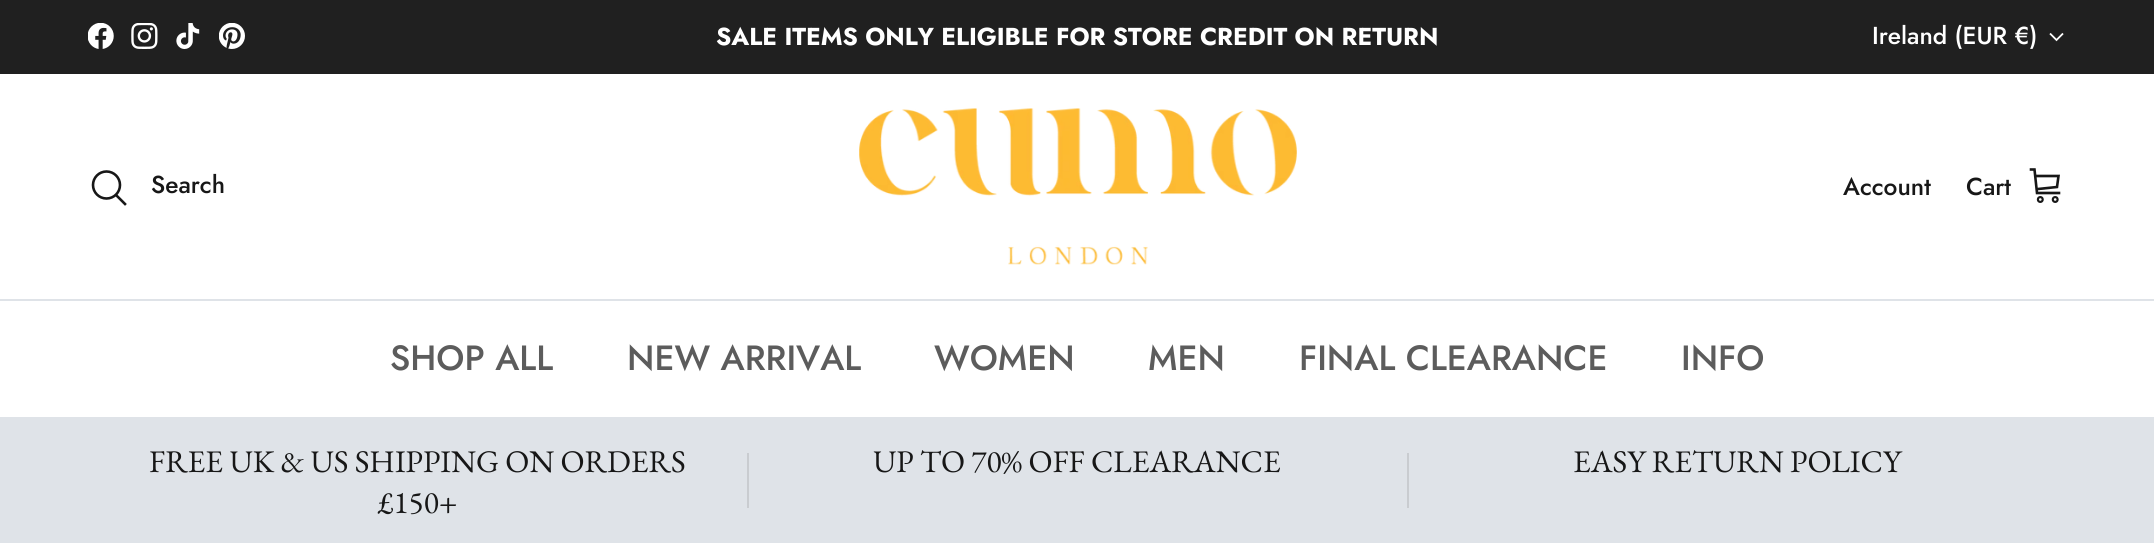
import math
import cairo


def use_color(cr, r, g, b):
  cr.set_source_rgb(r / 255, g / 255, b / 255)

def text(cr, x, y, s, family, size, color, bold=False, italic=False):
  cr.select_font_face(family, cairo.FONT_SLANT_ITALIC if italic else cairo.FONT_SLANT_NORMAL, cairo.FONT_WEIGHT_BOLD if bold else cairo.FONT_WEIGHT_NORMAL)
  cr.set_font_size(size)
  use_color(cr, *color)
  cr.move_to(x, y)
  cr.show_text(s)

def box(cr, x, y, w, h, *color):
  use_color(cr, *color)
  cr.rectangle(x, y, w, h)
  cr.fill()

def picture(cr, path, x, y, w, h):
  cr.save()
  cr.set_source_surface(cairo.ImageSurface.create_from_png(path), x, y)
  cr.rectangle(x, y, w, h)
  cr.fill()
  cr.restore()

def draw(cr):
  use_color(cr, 255, 255, 255)
  cr.paint()
  box(cr, 0, 0, 2154, 74, 32, 32, 32)
  picture(cr, "img_01.png", 88, 23, 26, 26)
  picture(cr, "img_02.png", 131, 23, 27, 26)
  picture(cr, "img_03.png", 176, 23, 24, 26)
  picture(cr, "img_04.png", 219, 23, 26, 26)
  cr.new_path()
  cr.move_to(2063, 33.5)
  cr.line_to(2056.5, 40)
  cr.line_to(2050, 33.5)
  use_color(cr, 255, 255, 255)
  cr.set_line_width(1.8)
  cr.stroke()
  box(cr, 0, 299, 2154, 2, 223, 227, 232)
  cr.arc(106.5, 185, 13.5, 0, 2 * math.pi)
  use_color(cr, 23, 23, 23)
  cr.set_line_width(2.6)
  cr.stroke()
  cr.new_path()
  cr.move_to(117, 196)
  cr.line_to(125, 204)
  cr.set_line_cap(cairo.LINE_CAP_SQUARE)
  cr.stroke()
  picture(cr, "img_05.png", 859, 108, 438, 157)
  cr.new_path()
  cr.move_to(2031, 169.5)
  cr.line_to(2034.5, 169.5)
  cr.line_to(2037, 193)
  cr.line_to(2059, 193)
  cr.move_to(2035.5, 176)
  cr.line_to(2058.5, 176)
  cr.line_to(2057, 187)
  cr.line_to(2038, 189)
  cr.stroke()
  cr.arc(2040.3, 199.5, 2.4, 0, 2 * math.pi)
  cr.set_line_width(2.2)
  cr.set_line_cap(cairo.LINE_CAP_BUTT)
  cr.stroke()
  cr.arc(2055.2, 199.5, 2.4, 0, 2 * math.pi)
  cr.stroke()
  box(cr, 0, 417, 2154, 126, 223, 227, 232)
  box(cr, 747, 453, 2, 55, 201, 204, 208)
  box(cr, 1407, 453, 2, 55, 201, 204, 208)
  text(cr, 716, 45, "SALE ITEMS ONLY ELIGIBLE FOR STORE CREDIT ON RETURN", "Jost", 24.5, (255, 255, 255), bold=True)
  text(cr, 1872, 44, "Ireland (EUR €)", "Jost Medium", 24.5, (255, 255, 255))
  text(cr, 151, 193, "Search", "Jost Medium", 24.5, (23, 23, 23))
  text(cr, 1843, 195, "Account", "Jost Medium", 24.5, (23, 23, 23))
  text(cr, 1966, 195, "Cart", "Jost Medium", 24.5, (23, 23, 23))
  text(cr, 390, 370, "SHOP ALL", "Jost Medium", 35, (92, 92, 92))
  text(cr, 627, 370, "NEW ARRIVAL", "Jost Medium", 35, (92, 92, 92))
  text(cr, 934, 370, "WOMEN", "Jost Medium", 35, (92, 92, 92))
  text(cr, 1148, 370, "MEN", "Jost Medium", 35, (92, 92, 92))
  text(cr, 1299, 370, "FINAL CLEARANCE", "Jost Medium", 35, (92, 92, 92))
  text(cr, 1681, 370, "INFO", "Jost Medium", 35, (92, 92, 92))
  text(cr, 149, 472, "FREE UK & US SHIPPING ON ORDERS", "EB Garamond", 31.5, (23, 23, 23))
  text(cr, 378, 513, "£150+", "EB Garamond", 31.5, (23, 23, 23))
  text(cr, 873, 472, "UP TO 70% OFF CLEARANCE", "EB Garamond", 31.5, (23, 23, 23))
  text(cr, 1573, 472, "EASY RETURN POLICY", "EB Garamond", 31.5, (23, 23, 23))


surface = cairo.ImageSurface(cairo.FORMAT_RGB24, 2154, 547)
cr = cairo.Context(surface)
options = cairo.FontOptions()
options.set_hint_metrics(cairo.HINT_METRICS_OFF)
options.set_hint_style(cairo.HINT_STYLE_NONE)
cr.set_font_options(options)
cr.set_miter_limit(4)
draw(cr)
surface.write_to_png("out.png")
